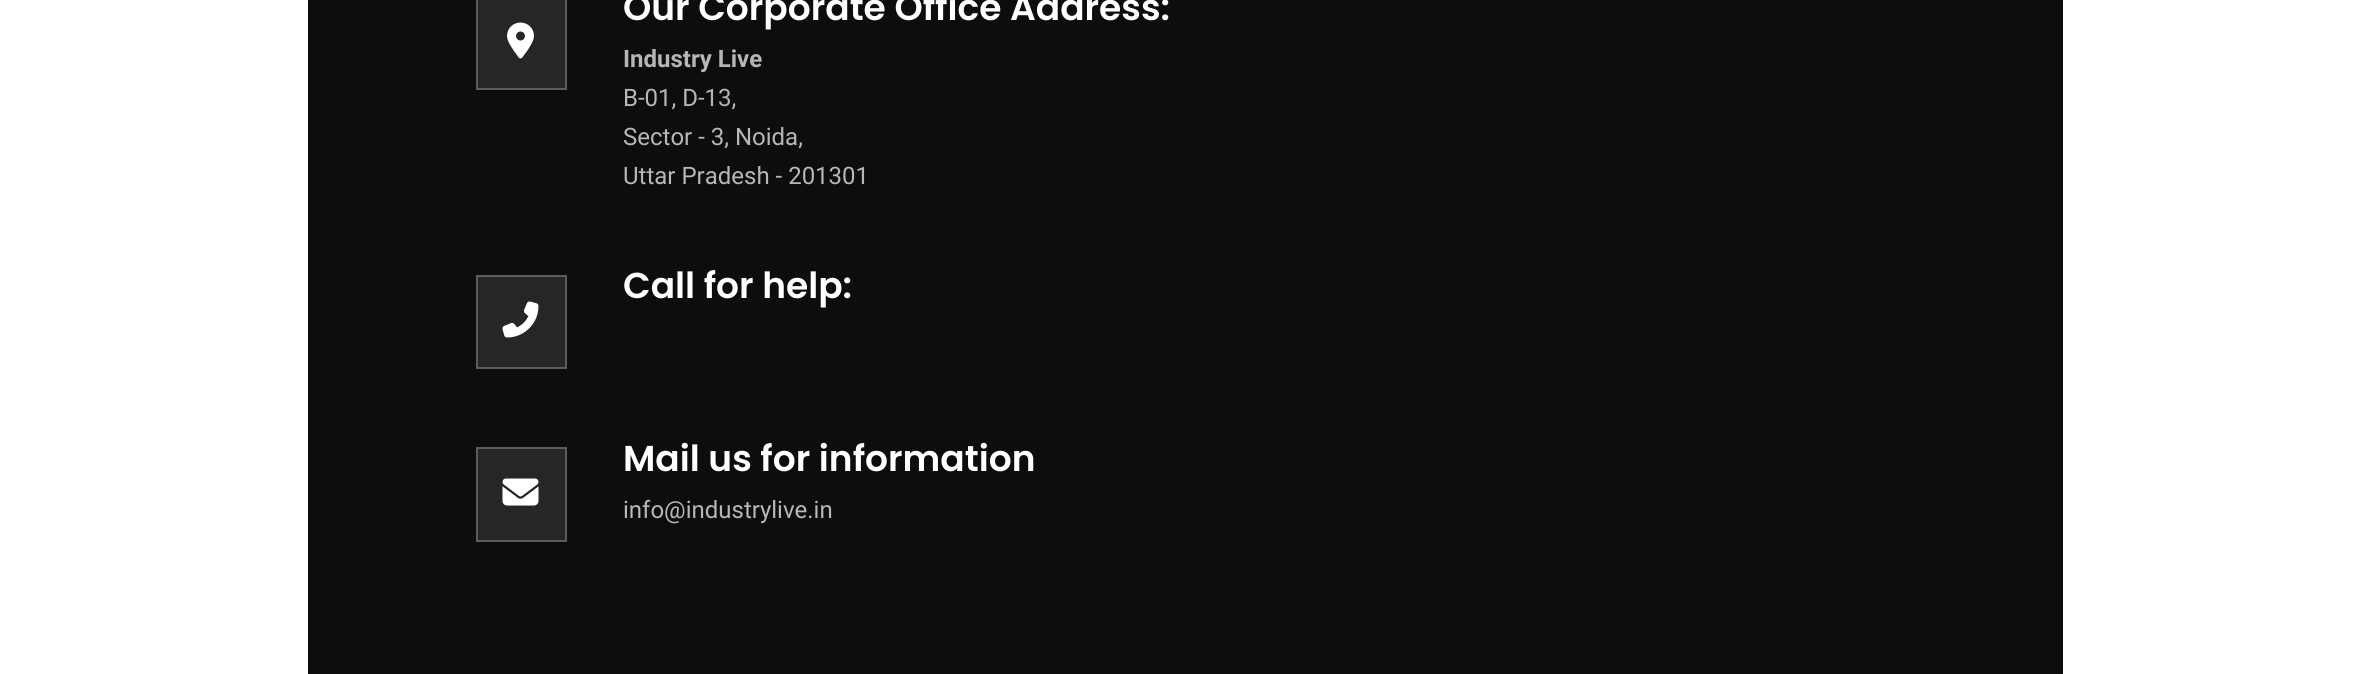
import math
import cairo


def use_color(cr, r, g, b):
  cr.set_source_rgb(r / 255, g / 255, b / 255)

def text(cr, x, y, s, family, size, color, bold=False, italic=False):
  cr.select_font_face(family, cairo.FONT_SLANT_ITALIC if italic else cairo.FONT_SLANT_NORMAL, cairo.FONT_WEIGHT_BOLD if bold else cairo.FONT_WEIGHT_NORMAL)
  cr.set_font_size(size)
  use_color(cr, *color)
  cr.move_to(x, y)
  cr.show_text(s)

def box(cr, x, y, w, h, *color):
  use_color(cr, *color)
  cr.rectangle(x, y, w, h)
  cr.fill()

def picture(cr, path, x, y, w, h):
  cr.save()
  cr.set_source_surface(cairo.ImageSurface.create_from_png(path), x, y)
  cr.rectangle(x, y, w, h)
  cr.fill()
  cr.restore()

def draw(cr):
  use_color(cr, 255, 255, 255)
  cr.paint()
  box(cr, 308, 0, 1755, 674, 13, 13, 13)
  use_color(cr, 38, 38, 39)
  cr.rectangle(477, -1, 89, 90)
  cr.fill_preserve()
  use_color(cr, 92, 92, 93)
  cr.stroke()
  picture(cr, "img_01.png", 507, 22, 27, 37)
  use_color(cr, 38, 38, 39)
  cr.rectangle(477, 276, 89, 92)
  cr.fill_preserve()
  use_color(cr, 92, 92, 93)
  cr.stroke()
  picture(cr, "img_02.png", 502, 301, 37, 37)
  use_color(cr, 38, 38, 39)
  cr.rectangle(477, 448, 89, 93)
  cr.fill_preserve()
  use_color(cr, 92, 92, 93)
  cr.stroke()
  picture(cr, "img_03.png", 502, 478, 37, 28)
  text(cr, 623, 20, "Our Corporate Office Address:", "Poppins SemiBold", 36, (255, 255, 255))
  text(cr, 623, 67, "Industry Live", "Roboto", 24, (183, 183, 183), bold=True)
  text(cr, 623, 106, "B-01, D-13,", "Roboto", 24, (183, 183, 183))
  text(cr, 623, 145, "Sector - 3, Noida,", "Roboto", 24, (183, 183, 183))
  text(cr, 623, 184, "Uttar Pradesh - 201301", "Roboto", 24, (183, 183, 183))
  text(cr, 623, 298, "Call for help:", "Poppins SemiBold", 36, (255, 255, 255))
  text(cr, 623, 471, "Mail us for information", "Poppins SemiBold", 36, (255, 255, 255))
  text(cr, 623, 518, "info@industrylive.in", "Roboto", 24, (183, 183, 183))


surface = cairo.ImageSurface(cairo.FORMAT_RGB24, 2368, 674)
cr = cairo.Context(surface)
options = cairo.FontOptions()
options.set_hint_metrics(cairo.HINT_METRICS_OFF)
options.set_hint_style(cairo.HINT_STYLE_NONE)
cr.set_font_options(options)
cr.set_miter_limit(4)
draw(cr)
surface.write_to_png("out.png")
